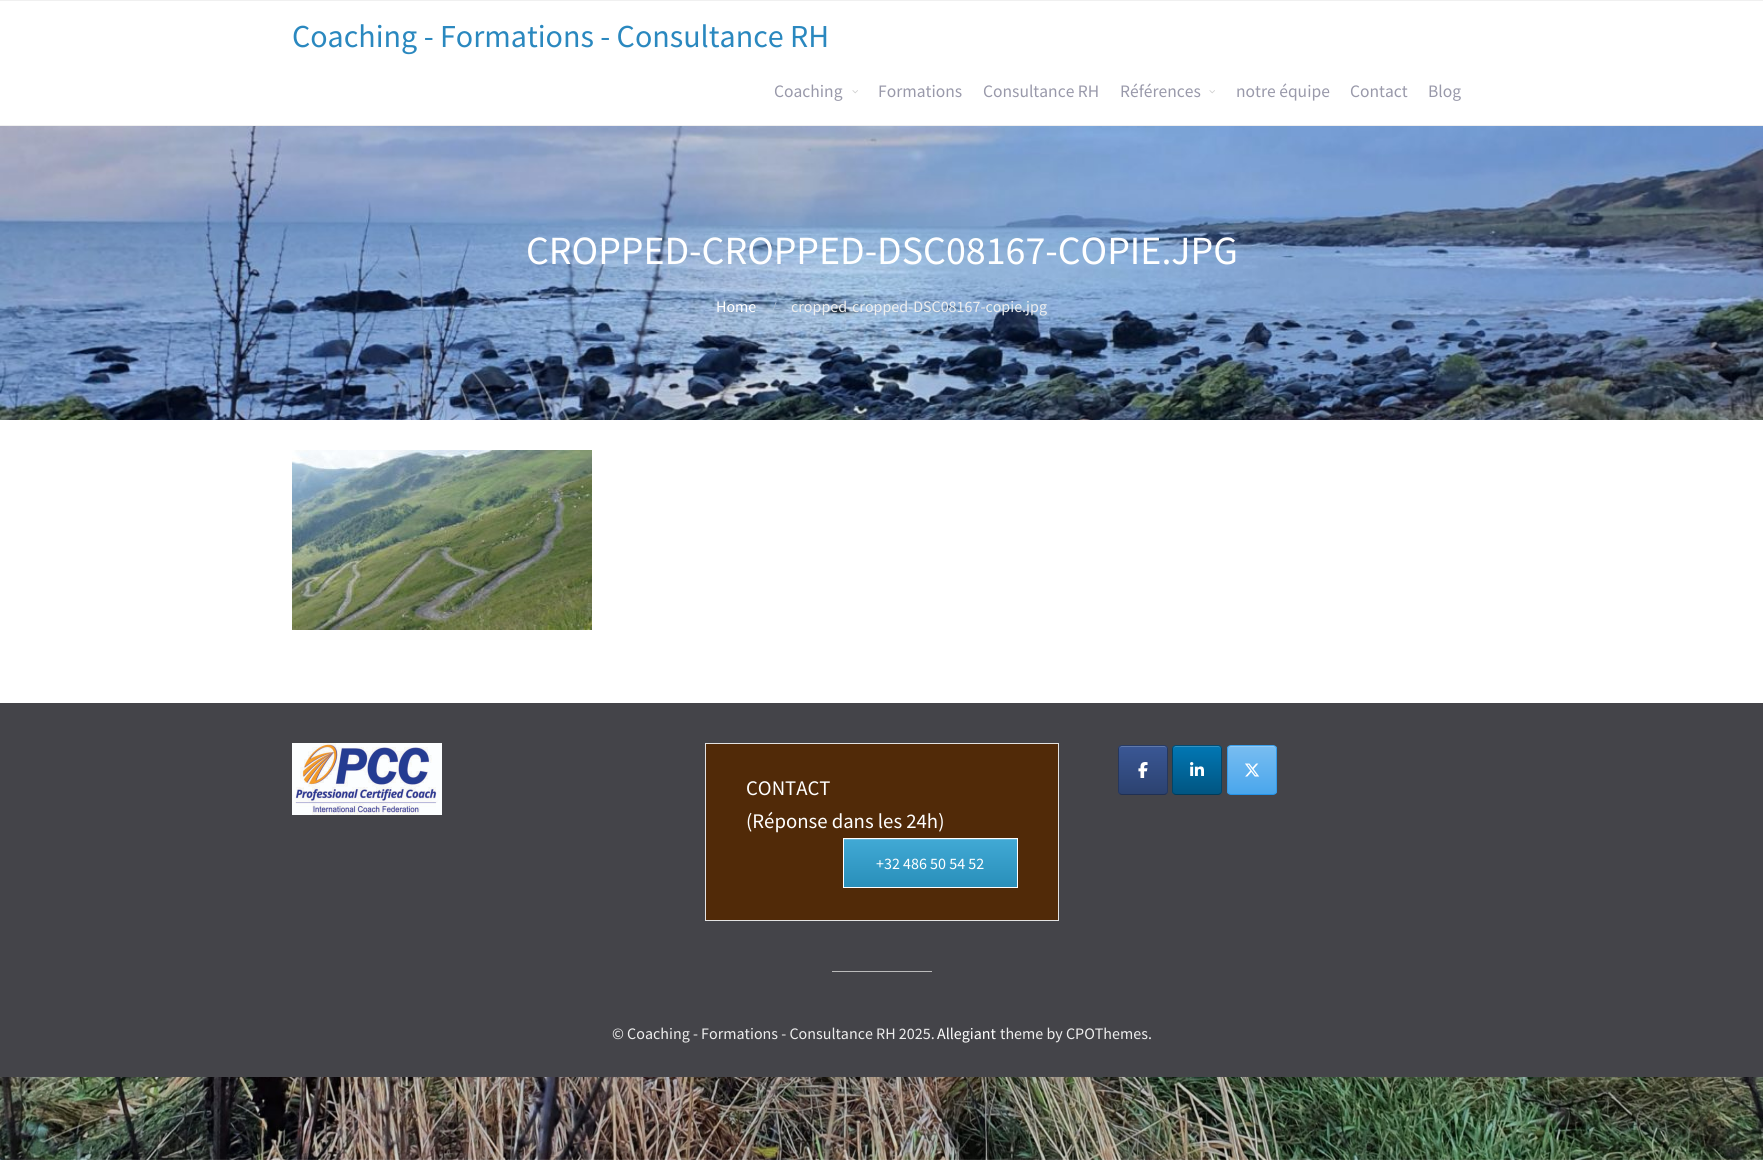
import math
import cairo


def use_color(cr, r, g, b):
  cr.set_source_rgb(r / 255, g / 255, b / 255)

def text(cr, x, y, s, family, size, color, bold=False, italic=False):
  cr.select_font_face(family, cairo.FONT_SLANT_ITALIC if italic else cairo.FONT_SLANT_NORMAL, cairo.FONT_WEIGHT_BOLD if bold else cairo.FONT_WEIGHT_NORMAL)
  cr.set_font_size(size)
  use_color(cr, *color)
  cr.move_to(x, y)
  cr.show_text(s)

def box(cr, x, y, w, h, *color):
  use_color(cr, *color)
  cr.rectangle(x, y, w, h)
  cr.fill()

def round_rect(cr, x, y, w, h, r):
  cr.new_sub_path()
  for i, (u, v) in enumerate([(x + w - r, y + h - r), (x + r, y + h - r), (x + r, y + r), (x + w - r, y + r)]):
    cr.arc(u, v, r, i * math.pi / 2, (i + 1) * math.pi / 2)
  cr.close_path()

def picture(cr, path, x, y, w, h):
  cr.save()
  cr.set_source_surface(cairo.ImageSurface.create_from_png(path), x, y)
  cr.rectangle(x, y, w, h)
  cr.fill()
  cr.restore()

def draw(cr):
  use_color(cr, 255, 255, 255)
  cr.paint()
  picture(cr, "img_01.png", 0, 1077, 1763, 83)
  box(cr, 0, 0, 1763, 1, 240, 240, 240)
  box(cr, 0, 125, 1763, 1, 240, 240, 240)
  picture(cr, "img_02.png", 852, 90, 6, 4)
  picture(cr, "img_02.png", 1209, 90, 6, 4)
  picture(cr, "img_03.png", 0, 126, 1763, 294)
  picture(cr, "img_04.png", 292, 450, 300, 180)
  box(cr, 0, 703, 1763, 374, 68, 68, 73)
  picture(cr, "img_05.png", 292, 743, 150, 72)
  cr.save()
  round_rect(cr, 1118, 745, 50, 50, 4)
  cr.clip()
  gradient = cairo.LinearGradient(1119, 794, 1119, 746)
  gradient.add_color_stop_rgba(0, 0.173, 0.259, 0.439, 1)
  gradient.add_color_stop_rgba(1, 0.227, 0.341, 0.584, 1)
  cr.set_source(gradient)
  cr.rectangle(1118, 746, 50, 48)
  cr.fill()
  cr.restore()
  use_color(cr, 97, 121, 170)
  cr.new_path()
  cr.move_to(1122, 747)
  cr.line_to(1164, 747)
  cr.curve_to(1166, 747, 1167, 748, 1167, 750)
  cr.curve_to(1167, 744, 1161, 746, 1157, 746)
  cr.line_to(1129, 746)
  cr.curve_to(1125, 746, 1119, 744, 1119, 750)
  cr.curve_to(1119, 748, 1120, 747, 1122, 747)
  cr.close_path()
  cr.fill()
  cr.new_path()
  cr.move_to(1119.5, 746.5)
  cr.curve_to(1120, 746, 1121, 745.5, 1122, 745.5)
  cr.line_to(1164, 745.5)
  cr.curve_to(1165, 745.5, 1166, 746, 1166.5, 746.5)
  use_color(cr, 39, 59, 101)
  cr.set_line_width(1)
  cr.stroke()
  cr.new_path()
  cr.move_to(1166.5, 746.5)
  cr.curve_to(1167, 747, 1167.5, 748, 1167.5, 749)
  cr.line_to(1167.5, 791)
  cr.curve_to(1167.5, 792, 1167, 793, 1166.5, 793.5)
  use_color(cr, 37, 55, 94)
  cr.stroke()
  cr.new_path()
  cr.move_to(1166.5, 793.5)
  cr.curve_to(1166, 794, 1165, 794.5, 1164, 794.5)
  cr.line_to(1122, 794.5)
  cr.curve_to(1121, 794.5, 1120, 794, 1119.5, 793.5)
  use_color(cr, 32, 48, 83)
  cr.stroke()
  cr.new_path()
  cr.move_to(1119.5, 793.5)
  cr.curve_to(1119, 793, 1118.5, 792, 1118.5, 791)
  cr.line_to(1118.5, 749)
  cr.curve_to(1118.5, 748, 1119, 747, 1119.5, 746.5)
  use_color(cr, 37, 55, 94)
  cr.stroke()
  picture(cr, "img_06.png", 1138, 762, 10, 16)
  cr.save()
  round_rect(cr, 1172, 745, 50, 50, 4)
  cr.clip()
  gradient = cairo.LinearGradient(1173, 794, 1173, 746)
  gradient.add_color_stop_rgba(0, 0.004, 0.333, 0.506, 1)
  gradient.add_color_stop_rgba(1, 0.004, 0.467, 0.706, 1)
  cr.set_source(gradient)
  cr.rectangle(1172, 746, 50, 48)
  cr.fill()
  cr.restore()
  use_color(cr, 52, 146, 194)
  cr.new_path()
  cr.move_to(1176, 747)
  cr.line_to(1218, 747)
  cr.curve_to(1220, 747, 1221, 748, 1221, 750)
  cr.curve_to(1221, 744, 1215, 746, 1211, 746)
  cr.line_to(1183, 746)
  cr.curve_to(1179, 746, 1173, 744, 1173, 750)
  cr.curve_to(1173, 748, 1174, 747, 1176, 747)
  cr.close_path()
  cr.fill()
  cr.new_path()
  cr.move_to(1173.5, 746.5)
  cr.curve_to(1174, 746, 1175, 745.5, 1176, 745.5)
  cr.line_to(1218, 745.5)
  cr.curve_to(1219, 745.5, 1220, 746, 1220.5, 746.5)
  use_color(cr, 1, 75, 114)
  cr.stroke()
  cr.new_path()
  cr.move_to(1220.5, 746.5)
  cr.curve_to(1221, 747, 1221.5, 748, 1221.5, 749)
  cr.line_to(1221.5, 791)
  cr.curve_to(1221.5, 792, 1221, 793, 1220.5, 793.5)
  use_color(cr, 1, 69, 104)
  cr.stroke()
  cr.new_path()
  cr.move_to(1220.5, 793.5)
  cr.curve_to(1220, 794, 1219, 794.5, 1218, 794.5)
  cr.line_to(1176, 794.5)
  cr.curve_to(1175, 794.5, 1174, 794, 1173.5, 793.5)
  use_color(cr, 0, 59, 89)
  cr.stroke()
  cr.new_path()
  cr.move_to(1173.5, 793.5)
  cr.curve_to(1173, 793, 1172.5, 792, 1172.5, 791)
  cr.line_to(1172.5, 749)
  cr.curve_to(1172.5, 748, 1173, 747, 1173.5, 746.5)
  use_color(cr, 1, 69, 104)
  cr.stroke()
  picture(cr, "img_07.png", 1190, 762, 14, 14)
  cr.save()
  round_rect(cr, 1227, 745, 50, 50, 4)
  cr.clip()
  gradient = cairo.LinearGradient(1228, 794, 1228, 746)
  gradient.add_color_stop_rgba(0, 0.29, 0.651, 0.925, 1)
  gradient.add_color_stop_rgba(1, 0.471, 0.741, 0.945, 1)
  cr.set_source(gradient)
  cr.rectangle(1227, 746, 50, 48)
  cr.fill()
  cr.restore()
  use_color(cr, 147, 202, 244)
  cr.new_path()
  cr.move_to(1231, 747)
  cr.line_to(1273, 747)
  cr.curve_to(1275, 747, 1276, 748, 1276, 750)
  cr.curve_to(1276, 744, 1270, 746, 1266, 746)
  cr.line_to(1238, 746)
  cr.curve_to(1234, 746, 1228, 744, 1228, 750)
  cr.curve_to(1228, 748, 1229, 747, 1231, 747)
  cr.close_path()
  cr.fill()
  cr.new_path()
  cr.move_to(1228.5, 746.5)
  cr.curve_to(1229, 746, 1230, 745.5, 1231, 745.5)
  cr.line_to(1273, 745.5)
  cr.curve_to(1274, 745.5, 1275, 746, 1275.5, 746.5)
  use_color(cr, 60, 160, 235)
  cr.stroke()
  cr.new_path()
  cr.move_to(1275.5, 746.5)
  cr.curve_to(1276, 747, 1276.5, 748, 1276.5, 749)
  cr.line_to(1276.5, 791)
  cr.curve_to(1276.5, 792, 1276, 793, 1275.5, 793.5)
  use_color(cr, 51, 155, 234)
  cr.stroke()
  cr.new_path()
  cr.move_to(1275.5, 793.5)
  cr.curve_to(1275, 794, 1274, 794.5, 1273, 794.5)
  cr.line_to(1231, 794.5)
  cr.curve_to(1230, 794.5, 1229, 794, 1228.5, 793.5)
  use_color(cr, 37, 148, 232)
  cr.stroke()
  cr.new_path()
  cr.move_to(1228.5, 793.5)
  cr.curve_to(1228, 793, 1227.5, 792, 1227.5, 791)
  cr.line_to(1227.5, 749)
  cr.curve_to(1227.5, 748, 1228, 747, 1228.5, 746.5)
  use_color(cr, 51, 155, 234)
  cr.stroke()
  picture(cr, "img_08.png", 1245, 763, 15, 14)
  use_color(cr, 81, 42, 8)
  cr.rectangle(705.5, 743.5, 353, 177)
  cr.fill_preserve()
  use_color(cr, 227, 227, 227)
  cr.stroke()
  gradient = cairo.LinearGradient(844, 887, 844, 839)
  gradient.add_color_stop_rgba(0, 0.161, 0.561, 0.729, 1)
  gradient.add_color_stop_rgba(1, 0.255, 0.663, 0.835, 1)
  cr.set_source(gradient)
  cr.rectangle(844, 840, 173, 47)
  cr.fill()
  box(cr, 844, 839, 173, 1, 103, 186, 221)
  cr.rectangle(843.5, 838.5, 174, 49)
  use_color(cr, 255, 255, 255)
  cr.stroke()
  box(cr, 832, 971, 100, 1, 187, 187, 187)
  text(cr, 292, 47, "Coaching - Formations - Consultance RH", "Source Sans Pro", 32, (42, 136, 191))
  text(cr, 774, 97, "Coaching", "Source Sans Pro", 17.5, (153, 153, 170))
  text(cr, 878, 97, "Formations", "Source Sans Pro", 17.5, (153, 153, 170))
  text(cr, 983, 97, "Consultance RH", "Source Sans Pro", 17.5, (153, 153, 170))
  text(cr, 1120, 97, "Références", "Source Sans Pro", 17.5, (153, 153, 170))
  text(cr, 1236, 97, "notre équipe", "Source Sans Pro", 17.5, (153, 153, 170))
  text(cr, 1350, 97, "Contact", "Source Sans Pro", 17.5, (153, 153, 170))
  text(cr, 1428, 97, "Blog", "Source Sans Pro", 17.5, (153, 153, 170))
  text(cr, 526, 264, "CROPPED-CROPPED-DSC08167-COPIE.JPG", "Source Sans Pro", 40, (255, 255, 255))
  text(cr, 716, 312, "Home", "Source Sans Pro", 16, (255, 255, 255))
  text(cr, 773, 310, "/", "Liberation Serif", 12, (174, 189, 206), bold=True)
  text(cr, 791, 312, "cropped-cropped-DSC08167-copie.jpg", "Source Sans Pro", 16, (238, 238, 238))
  text(cr, 746, 795, "CONTACT", "Source Sans Pro", 20.75, (255, 255, 255))
  text(cr, 746, 828, "(Réponse dans les 24h)", "Source Sans Pro", 20.75, (255, 255, 255))
  text(cr, 876, 869, "+32 486 50 54 52", "Source Sans Pro", 16, (255, 255, 255))
  text(cr, 612, 1039, "© Coaching - Formations - Consultance RH 2025.", "Source Sans Pro", 16, (238, 238, 238))
  text(cr, 937, 1039, "Allegiant", "Source Sans Pro", 16, (255, 255, 255))
  text(cr, 1000, 1039, "theme by CPOThemes.", "Source Sans Pro", 16, (238, 238, 238))


surface = cairo.ImageSurface(cairo.FORMAT_RGB24, 1763, 1160)
cr = cairo.Context(surface)
options = cairo.FontOptions()
options.set_hint_metrics(cairo.HINT_METRICS_OFF)
options.set_hint_style(cairo.HINT_STYLE_NONE)
cr.set_font_options(options)
cr.set_miter_limit(4)
draw(cr)
surface.write_to_png("out.png")
